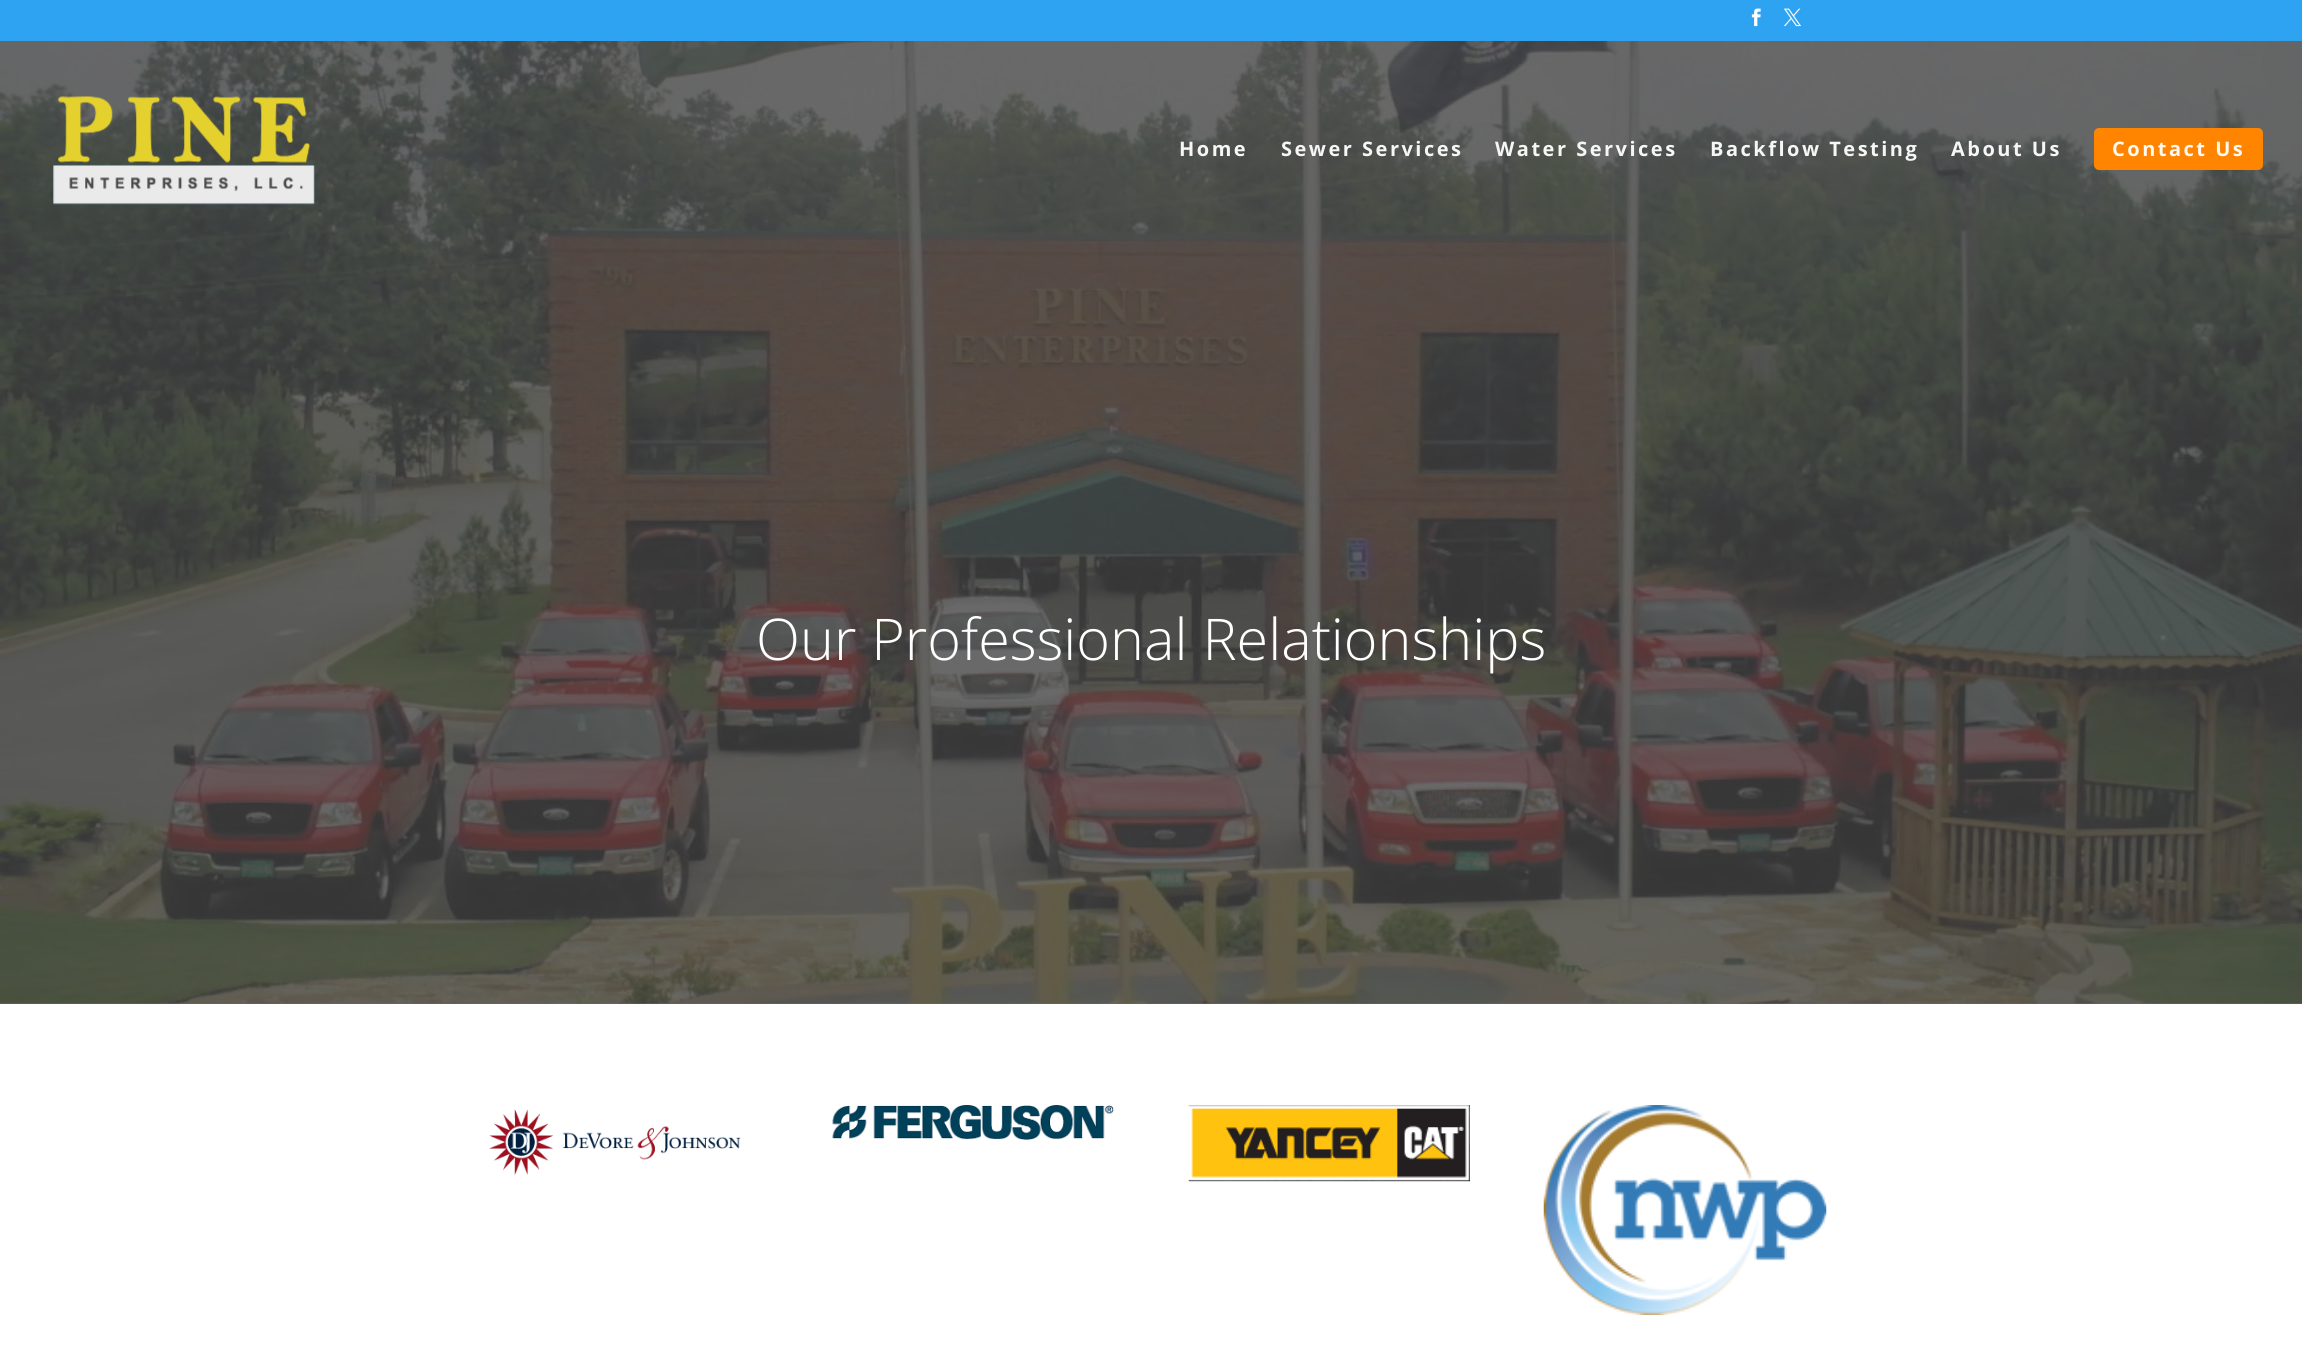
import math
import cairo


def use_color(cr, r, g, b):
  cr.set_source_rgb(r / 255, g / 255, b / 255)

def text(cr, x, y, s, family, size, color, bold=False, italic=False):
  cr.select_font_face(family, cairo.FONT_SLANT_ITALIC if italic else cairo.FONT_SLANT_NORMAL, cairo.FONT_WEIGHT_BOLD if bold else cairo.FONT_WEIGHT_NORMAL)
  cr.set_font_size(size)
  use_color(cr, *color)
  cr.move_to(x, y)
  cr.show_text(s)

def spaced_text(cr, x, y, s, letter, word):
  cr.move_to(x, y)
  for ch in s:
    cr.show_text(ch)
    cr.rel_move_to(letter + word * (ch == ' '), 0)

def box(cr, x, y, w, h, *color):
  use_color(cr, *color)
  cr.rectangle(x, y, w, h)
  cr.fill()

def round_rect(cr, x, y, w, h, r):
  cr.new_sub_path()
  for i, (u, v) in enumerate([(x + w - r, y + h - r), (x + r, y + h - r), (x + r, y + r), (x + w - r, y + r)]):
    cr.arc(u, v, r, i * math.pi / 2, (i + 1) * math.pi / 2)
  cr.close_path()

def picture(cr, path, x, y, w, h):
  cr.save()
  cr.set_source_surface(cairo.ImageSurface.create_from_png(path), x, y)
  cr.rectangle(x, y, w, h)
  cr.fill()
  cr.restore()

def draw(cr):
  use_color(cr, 105, 105, 105)
  cr.paint()
  box(cr, 0, 0, 2302, 41, 46, 163, 242)
  picture(cr, "img_01.png", 1751, 8, 10, 19)
  picture(cr, "img_02.png", 1783, 8, 18, 19)
  picture(cr, "img_04.png", 0, 41, 2302, 963)
  picture(cr, "img_03.png", 53, 96, 262, 109)
  use_color(cr, 255, 133, 0)
  round_rect(cr, 2094, 128, 169, 42, 5)
  cr.fill()
  box(cr, 0, 1004, 2302, 342, 255, 255, 255)
  picture(cr, "img_05.png", 489, 1109, 252, 66)
  picture(cr, "img_06.png", 832, 1105, 282, 35)
  picture(cr, "img_07.png", 1188, 1105, 282, 77)
  picture(cr, "img_08.png", 1543, 1105, 284, 210)
  cr.select_font_face("Open Sans", cairo.FONT_SLANT_NORMAL, cairo.FONT_WEIGHT_BOLD)
  cr.set_font_size(20)
  use_color(cr, 246, 246, 246)
  spaced_text(cr, 1179, 156, "Home", 2.5, 0)
  spaced_text(cr, 1281, 156, "Sewer Services", 2.5, 0)
  spaced_text(cr, 1495, 156, "Water Services", 2.5, 0)
  spaced_text(cr, 1710, 156, "Backflow Testing", 2.5, 0)
  spaced_text(cr, 1951, 156, "About Us", 2.5, 0)
  use_color(cr, 255, 249, 242)
  spaced_text(cr, 2112, 156, "Contact Us", 2.5, 0)
  text(cr, 756, 660, "Our Professional Relationships", "Open Sans Light", 57.5, (255, 255, 255))


surface = cairo.ImageSurface(cairo.FORMAT_RGB24, 2302, 1346)
cr = cairo.Context(surface)
options = cairo.FontOptions()
options.set_hint_metrics(cairo.HINT_METRICS_OFF)
options.set_hint_style(cairo.HINT_STYLE_NONE)
cr.set_font_options(options)
cr.set_miter_limit(4)
draw(cr)
surface.write_to_png("out.png")
